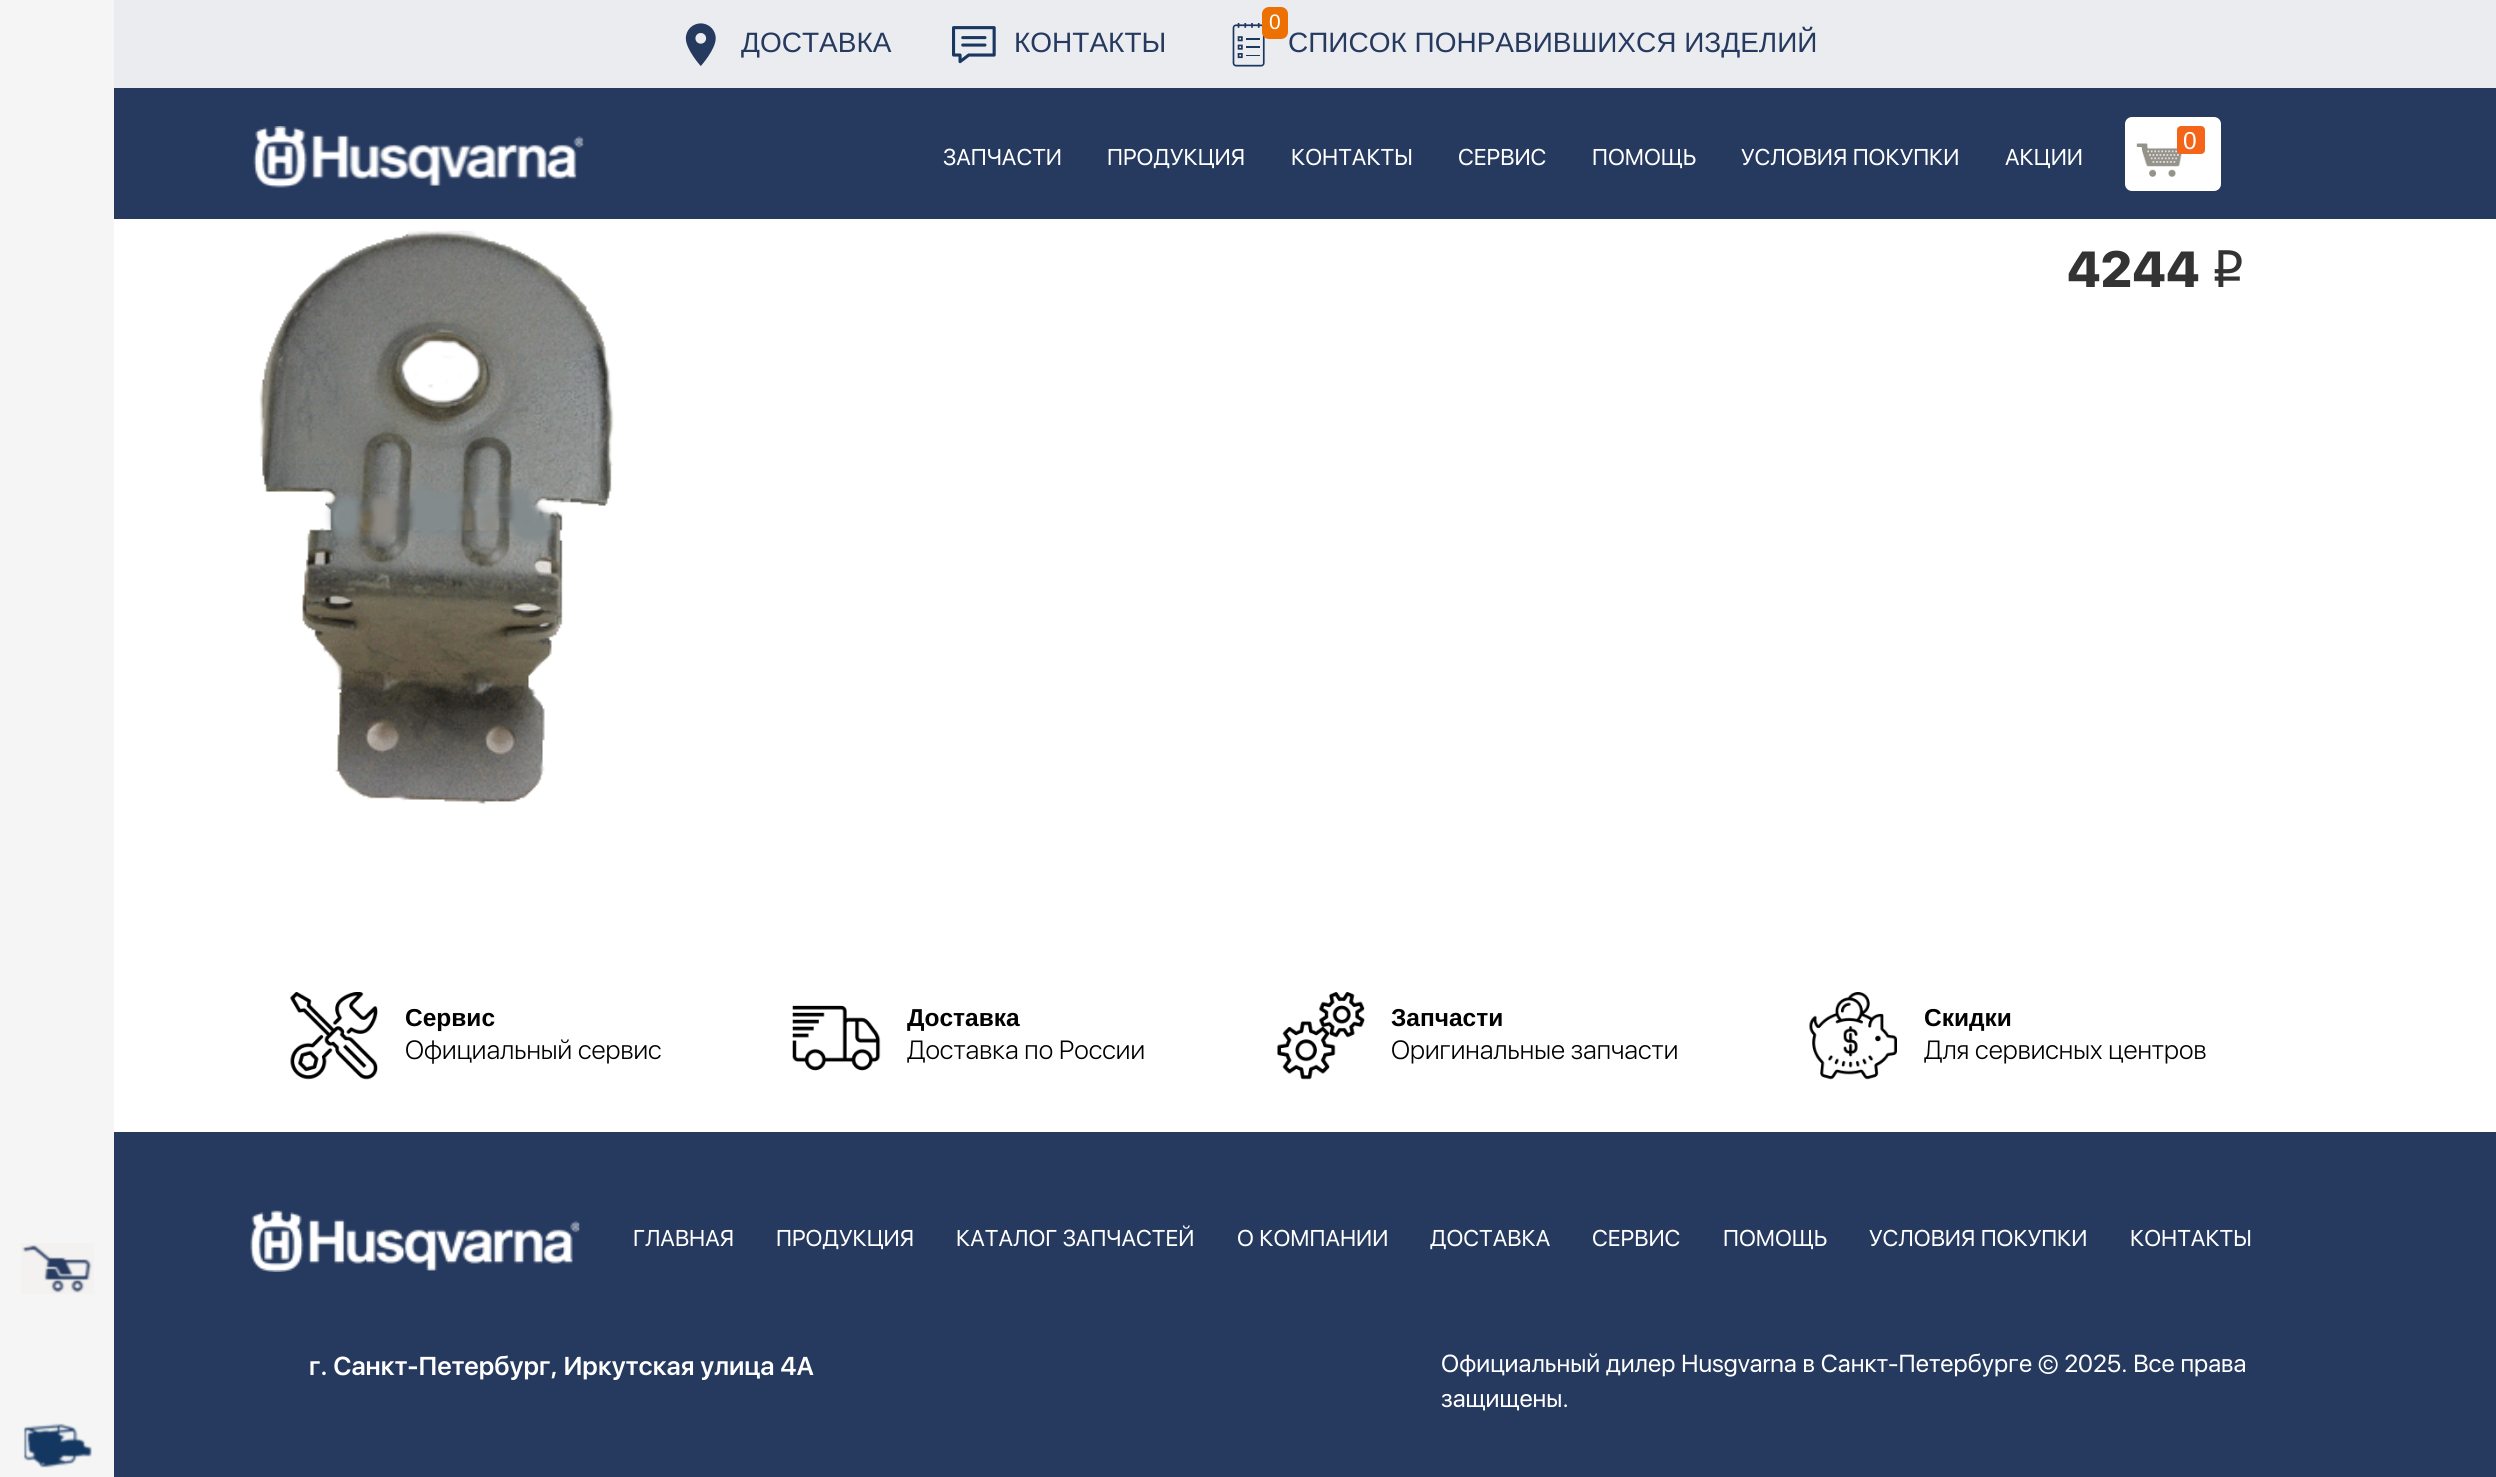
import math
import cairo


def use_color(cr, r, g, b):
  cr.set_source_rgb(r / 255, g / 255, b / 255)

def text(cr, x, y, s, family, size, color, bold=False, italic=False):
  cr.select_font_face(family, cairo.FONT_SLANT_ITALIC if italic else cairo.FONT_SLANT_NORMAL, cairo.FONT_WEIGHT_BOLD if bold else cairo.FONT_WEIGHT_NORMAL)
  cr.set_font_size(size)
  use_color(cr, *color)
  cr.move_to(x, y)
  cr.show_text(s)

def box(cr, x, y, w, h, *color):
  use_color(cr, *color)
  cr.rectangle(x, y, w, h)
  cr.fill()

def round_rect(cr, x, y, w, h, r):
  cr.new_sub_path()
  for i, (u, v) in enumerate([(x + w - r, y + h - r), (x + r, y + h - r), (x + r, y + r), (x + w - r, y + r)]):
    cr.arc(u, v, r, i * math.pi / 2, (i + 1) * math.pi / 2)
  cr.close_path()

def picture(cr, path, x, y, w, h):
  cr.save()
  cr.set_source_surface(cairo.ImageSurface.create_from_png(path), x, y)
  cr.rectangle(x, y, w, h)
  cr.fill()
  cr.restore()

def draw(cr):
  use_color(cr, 255, 255, 255)
  cr.paint()
  box(cr, 0, 0, 114, 1477, 245, 245, 245)
  picture(cr, "img_01.png", 21, 1243, 73, 51)
  picture(cr, "img_02.png", 23, 1423, 70, 45)
  box(cr, 114, 0, 2382, 88, 234, 236, 240)
  picture(cr, "img_03.png", 685, 23, 31, 43)
  picture(cr, "img_04.png", 952, 26, 44, 38)
  picture(cr, "img_05.png", 1232, 23, 33, 44)
  use_color(cr, 237, 113, 2)
  round_rect(cr, 1262, 7, 26, 32, 7)
  cr.fill()
  box(cr, 114, 88, 2382, 131, 38, 58, 95)
  picture(cr, "img_06.png", 253, 126, 331, 62)
  use_color(cr, 255, 255, 255)
  round_rect(cr, 2125, 117, 96, 74, 7)
  cr.fill()
  picture(cr, "img_07.png", 2136, 143, 46, 34)
  use_color(cr, 244, 101, 26)
  round_rect(cr, 2177, 126, 28, 28, 4)
  cr.fill()
  picture(cr, "img_08.png", 259, 230, 355, 575)
  picture(cr, "img_09.png", 290, 992, 88, 88)
  picture(cr, "img_10.png", 792, 1005, 89, 66)
  picture(cr, "img_11.png", 1277, 992, 88, 88)
  picture(cr, "img_12.png", 1809, 992, 88, 88)
  box(cr, 114, 1132, 2382, 345, 38, 58, 95)
  picture(cr, "img_13.png", 250, 1210, 330, 62)
  text(cr, 741, 52, "ДОСТАВКА", "Liberation Sans", 28, (38, 58, 95))
  text(cr, 1014, 52, "КОНТАКТЫ", "Liberation Sans", 28, (38, 58, 95))
  text(cr, 1269, 29, "0", "Liberation Sans", 21, (255, 255, 255))
  text(cr, 1288, 52, "СПИСОК ПОНРАВИВШИХСЯ ИЗДЕЛИЙ", "Liberation Sans", 28, (38, 58, 95))
  text(cr, 2183, 149, "0", "Liberation Sans", 24.5, (255, 255, 255))
  text(cr, 943, 165, "ЗАПЧАСТИ", "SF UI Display", 22.75, (255, 255, 255))
  text(cr, 1107, 165, "ПРОДУКЦИЯ", "SF UI Display", 22.75, (255, 255, 255))
  text(cr, 1291, 165, "КОНТАКТЫ", "SF UI Display", 22.75, (255, 255, 255))
  text(cr, 1458, 165, "СЕРВИС", "SF UI Display", 22.75, (255, 255, 255))
  text(cr, 1592, 165, "ПОМОЩЬ", "SF UI Display", 22.75, (255, 255, 255))
  text(cr, 1741, 165, "УСЛОВИЯ ПОКУПКИ", "SF UI Display", 22.75, (255, 255, 255))
  text(cr, 2005, 165, "АКЦИИ", "SF UI Display", 22.75, (255, 255, 255))
  text(cr, 2067, 287, "4244", "SF UI Display Black", 52.5, (51, 51, 51))
  text(cr, 2210, 287, "i", "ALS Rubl", 52.5, (51, 51, 51))
  text(cr, 405, 1026, "Сервис", "Liberation Sans", 24.5, (0, 0, 0), bold=True)
  text(cr, 405, 1059, "Официальный сервис", "SF UI Display Light", 26.25, (0, 0, 0))
  text(cr, 907, 1026, "Доставка", "Liberation Sans", 24.5, (0, 0, 0), bold=True)
  text(cr, 907, 1059, "Доставка по России", "SF UI Display Light", 26.25, (0, 0, 0))
  text(cr, 1391, 1026, "Запчасти", "Liberation Sans", 24.5, (0, 0, 0), bold=True)
  text(cr, 1391, 1059, "Оригинальные запчасти", "SF UI Display Light", 26.25, (0, 0, 0))
  text(cr, 1924, 1026, "Скидки", "Liberation Sans", 24.5, (0, 0, 0), bold=True)
  text(cr, 1924, 1059, "Для сервисных центров", "SF UI Display Light", 26.25, (0, 0, 0))
  text(cr, 633, 1246, "ГЛАВНАЯ", "SF UI Display", 22.75, (255, 255, 255))
  text(cr, 776, 1246, "ПРОДУКЦИЯ", "SF UI Display", 22.75, (255, 255, 255))
  text(cr, 956, 1246, "КАТАЛОГ ЗАПЧАСТЕЙ", "SF UI Display", 22.75, (255, 255, 255))
  text(cr, 1237, 1246, "О КОМПАНИИ", "SF UI Display", 22.75, (255, 255, 255))
  text(cr, 1430, 1246, "ДОСТАВКА", "SF UI Display", 22.75, (255, 255, 255))
  text(cr, 1592, 1246, "СЕРВИС", "SF UI Display", 22.75, (255, 255, 255))
  text(cr, 1723, 1246, "ПОМОЩЬ", "SF UI Display", 22.75, (255, 255, 255))
  text(cr, 1869, 1246, "УСЛОВИЯ ПОКУПКИ", "SF UI Display", 22.75, (255, 255, 255))
  text(cr, 2130, 1246, "КОНТАКТЫ", "SF UI Display", 22.75, (255, 255, 255))
  text(cr, 309, 1375, "г. Санкт-Петербург, Иркутская улица 4А", "SF UI Display SemiBold", 26.25, (255, 255, 255))
  text(cr, 1441, 1372, "Официальный дилер Husgvarna в Санкт-Петербурге © 2025. Все права", "SF UI Display", 24.5, (255, 255, 255))
  text(cr, 1441, 1407, "защищены.", "SF UI Display", 24.5, (255, 255, 255))


surface = cairo.ImageSurface(cairo.FORMAT_RGB24, 2496, 1477)
cr = cairo.Context(surface)
options = cairo.FontOptions()
options.set_hint_metrics(cairo.HINT_METRICS_OFF)
options.set_hint_style(cairo.HINT_STYLE_NONE)
cr.set_font_options(options)
cr.set_miter_limit(4)
draw(cr)
surface.write_to_png("out.png")
